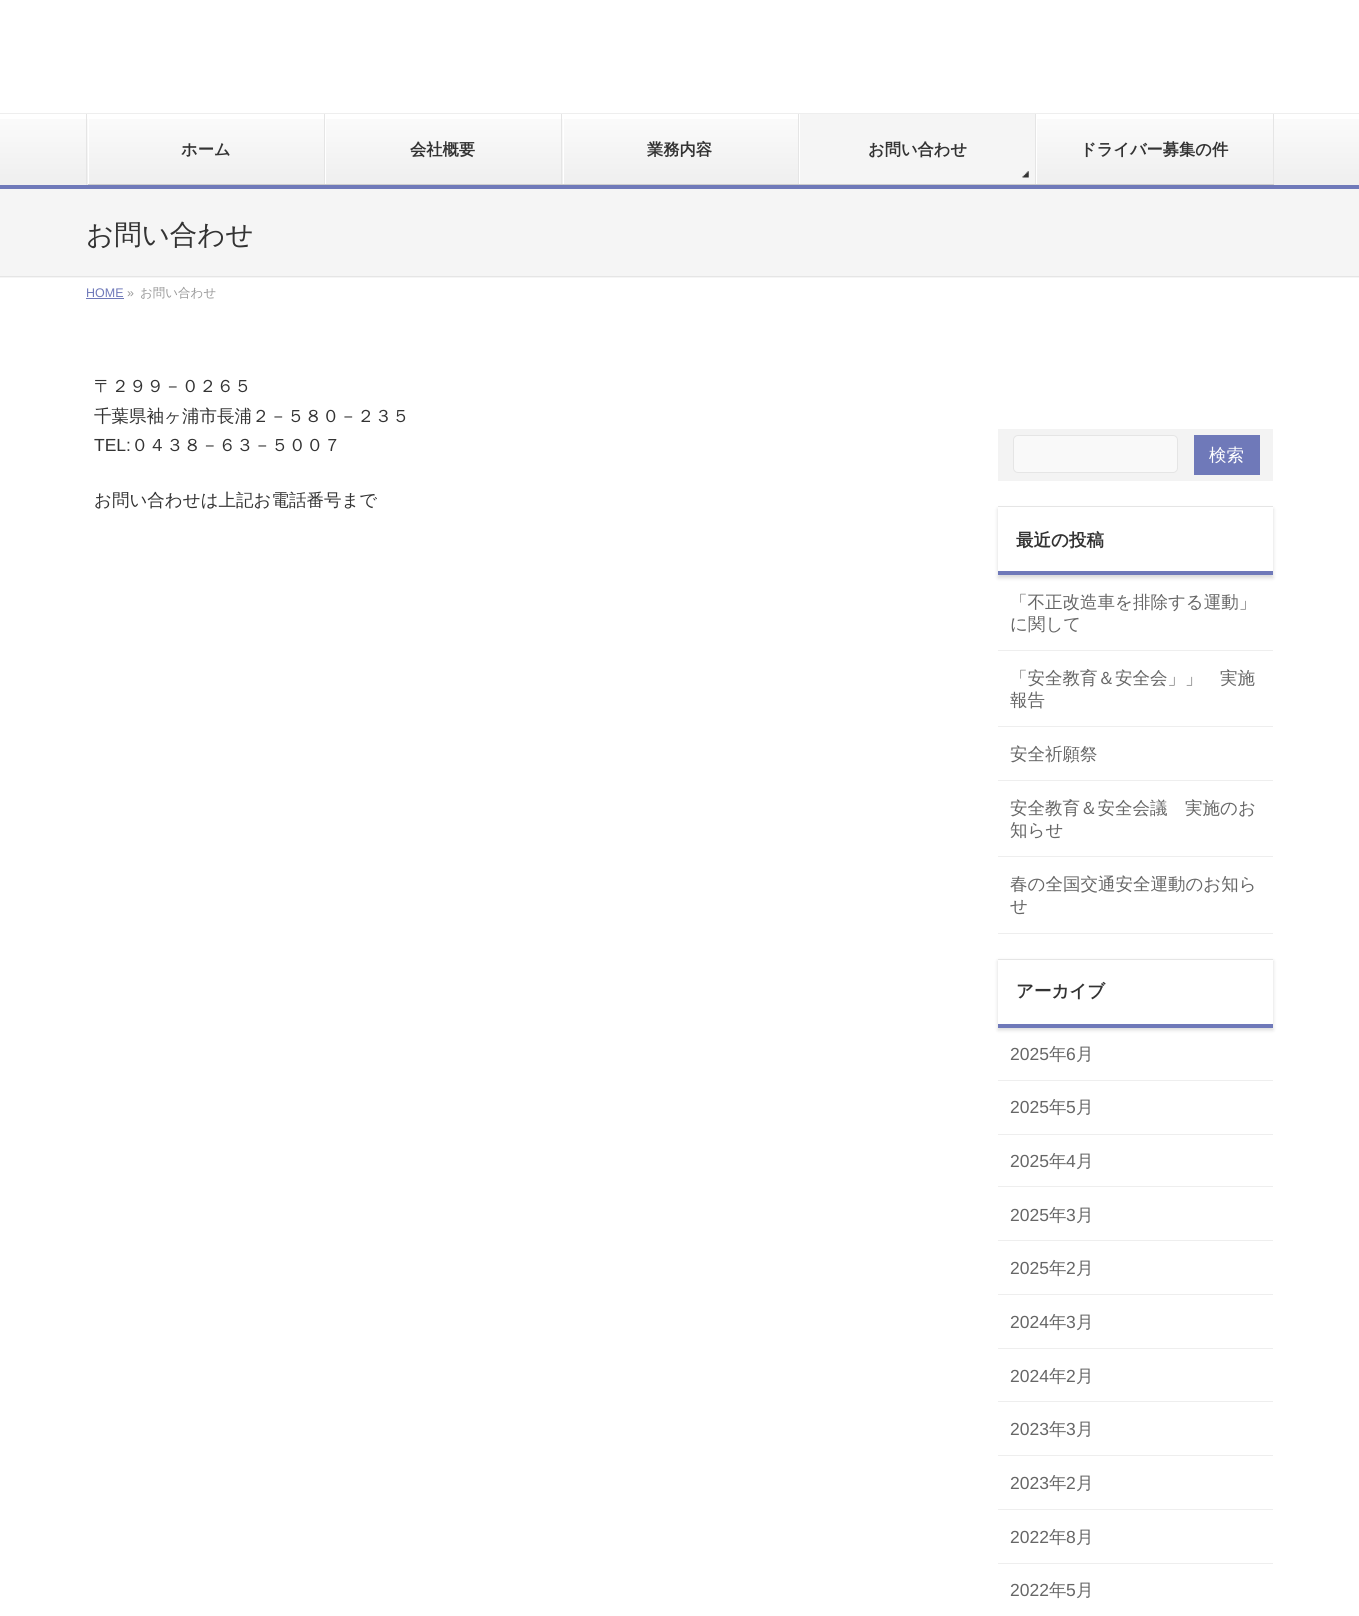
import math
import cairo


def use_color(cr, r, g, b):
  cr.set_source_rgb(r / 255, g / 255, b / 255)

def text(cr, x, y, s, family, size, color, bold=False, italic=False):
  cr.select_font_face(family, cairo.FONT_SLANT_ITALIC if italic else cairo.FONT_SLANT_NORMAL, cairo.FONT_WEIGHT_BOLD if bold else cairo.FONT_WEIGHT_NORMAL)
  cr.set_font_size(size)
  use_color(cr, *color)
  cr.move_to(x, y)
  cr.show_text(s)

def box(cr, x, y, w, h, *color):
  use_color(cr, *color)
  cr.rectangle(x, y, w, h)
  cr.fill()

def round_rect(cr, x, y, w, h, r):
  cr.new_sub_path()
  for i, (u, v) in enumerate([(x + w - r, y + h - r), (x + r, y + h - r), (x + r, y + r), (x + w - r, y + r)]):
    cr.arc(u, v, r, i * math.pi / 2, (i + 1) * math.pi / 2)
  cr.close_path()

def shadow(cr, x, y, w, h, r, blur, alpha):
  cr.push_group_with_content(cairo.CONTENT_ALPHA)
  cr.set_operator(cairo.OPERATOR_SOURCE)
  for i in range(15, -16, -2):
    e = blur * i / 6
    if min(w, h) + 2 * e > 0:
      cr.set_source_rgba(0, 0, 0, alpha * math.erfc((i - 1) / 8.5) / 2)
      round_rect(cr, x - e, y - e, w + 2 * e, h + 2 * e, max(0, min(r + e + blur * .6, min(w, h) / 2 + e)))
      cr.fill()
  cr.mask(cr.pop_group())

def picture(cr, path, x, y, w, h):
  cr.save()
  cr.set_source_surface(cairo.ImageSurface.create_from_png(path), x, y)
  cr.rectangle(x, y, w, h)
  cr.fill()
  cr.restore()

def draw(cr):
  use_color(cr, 255, 255, 255)
  cr.paint()
  picture(cr, "img_01.png", 0, 119, 1359, 66)
  box(cr, 0, 113, 1359, 1, 238, 238, 238)
  box(cr, 0, 185, 1359, 4, 111, 121, 185)
  box(cr, 86, 114, 1, 71, 229, 229, 229)
  box(cr, 88, 114, 1, 71, 255, 255, 255)
  box(cr, 324, 114, 1, 71, 229, 229, 229)
  box(cr, 88, 184, 237, 1, 204, 204, 204)
  box(cr, 325, 114, 1, 71, 255, 255, 255)
  box(cr, 561, 114, 1, 71, 229, 229, 229)
  box(cr, 325, 184, 238, 1, 204, 204, 204)
  box(cr, 563, 114, 1, 71, 255, 255, 255)
  box(cr, 798, 114, 1, 71, 229, 229, 229)
  box(cr, 563, 184, 236, 1, 204, 204, 204)
  box(cr, 800, 114, 235, 70, 245, 245, 245)
  picture(cr, "img_02.png", 1022, 171, 7, 7)
  box(cr, 799, 114, 1, 70, 255, 255, 255)
  box(cr, 1035, 114, 1, 71, 229, 229, 229)
  box(cr, 799, 184, 237, 1, 204, 204, 204)
  box(cr, 1036, 114, 1, 71, 255, 255, 255)
  box(cr, 1273, 114, 1, 71, 229, 229, 229)
  box(cr, 1036, 184, 238, 1, 204, 204, 204)
  box(cr, 0, 189, 1359, 89, 245, 245, 245)
  box(cr, 0, 276, 1359, 1, 229, 229, 229)
  box(cr, 86, 298, 38, 1, 111, 121, 185)
  box(cr, 998, 429, 275, 52, 243, 243, 243)
  use_color(cr, 249, 249, 249)
  round_rect(cr, 1013.5, 435.5, 164, 37, 4.5)
  cr.fill_preserve()
  use_color(cr, 229, 229, 229)
  cr.set_line_width(1)
  cr.stroke()
  box(cr, 1194, 435, 66, 40, 111, 121, 185)
  cr.save()
  cr.set_fill_rule(cairo.FILL_RULE_EVEN_ODD)
  cr.new_path()
  cr.move_to(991, 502)
  cr.line_to(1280, 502)
  cr.line_to(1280, 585)
  cr.line_to(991, 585)
  cr.close_path()
  cr.move_to(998, 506)
  cr.line_to(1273, 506)
  cr.line_to(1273, 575)
  cr.line_to(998, 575)
  cr.close_path()
  cr.clip()
  use_color(cr, 0, 0, 0)
  shadow(cr, 998, 509, 275, 69, 0, 2, 0.15)
  cr.restore()
  box(cr, 998, 506, 275, 1, 229, 229, 229)
  box(cr, 998, 571, 275, 4, 111, 121, 185)
  box(cr, 998, 650, 275, 1, 238, 238, 238)
  box(cr, 998, 726, 275, 1, 238, 238, 238)
  box(cr, 998, 780, 275, 1, 238, 238, 238)
  box(cr, 998, 856, 275, 1, 238, 238, 238)
  box(cr, 998, 933, 275, 1, 238, 238, 238)
  cr.save()
  cr.set_fill_rule(cairo.FILL_RULE_EVEN_ODD)
  cr.new_path()
  cr.move_to(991, 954)
  cr.line_to(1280, 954)
  cr.line_to(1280, 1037)
  cr.line_to(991, 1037)
  cr.close_path()
  cr.move_to(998, 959)
  cr.line_to(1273, 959)
  cr.line_to(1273, 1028)
  cr.line_to(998, 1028)
  cr.close_path()
  cr.clip()
  use_color(cr, 0, 0, 0)
  shadow(cr, 998, 961, 275, 69, 0, 2, 0.15)
  cr.restore()
  box(cr, 998, 959, 275, 1, 229, 229, 229)
  box(cr, 998, 1024, 275, 4, 111, 121, 185)
  box(cr, 998, 1080, 275, 1, 238, 238, 238)
  box(cr, 998, 1134, 275, 1, 238, 238, 238)
  box(cr, 998, 1186, 275, 1, 238, 238, 238)
  box(cr, 998, 1240, 275, 1, 238, 238, 238)
  box(cr, 998, 1294, 275, 1, 238, 238, 238)
  box(cr, 998, 1348, 275, 1, 238, 238, 238)
  box(cr, 998, 1401, 275, 1, 238, 238, 238)
  box(cr, 998, 1455, 275, 1, 238, 238, 238)
  box(cr, 998, 1509, 275, 1, 238, 238, 238)
  box(cr, 998, 1563, 275, 1, 238, 238, 238)
  text(cr, 181, 155, "ホーム", "WenQuanYi Zen Hei", 16.25, (51, 51, 51), bold=True)
  text(cr, 410, 155, "会社概要", "WenQuanYi Zen Hei", 16.25, (51, 51, 51), bold=True)
  text(cr, 647, 155, "業務内容", "WenQuanYi Zen Hei", 16.25, (51, 51, 51), bold=True)
  text(cr, 868, 155, "お問い合わせ", "WenQuanYi Zen Hei", 16.25, (51, 51, 51), bold=True)
  text(cr, 1080, 155, "ドライバー募集の件", "WenQuanYi Zen Hei", 16.25, (51, 51, 51), bold=True)
  text(cr, 86, 244, "お問い合わせ", "WenQuanYi Zen Hei Medium", 27.5, (51, 51, 51))
  text(cr, 86, 297, "HOME", "Liberation Sans", 12.5, (111, 121, 185))
  text(cr, 127, 297, "»", "Liberation Sans", 12.5, (153, 153, 153))
  text(cr, 140, 297, "お問い合わせ", "WenQuanYi Zen Hei Medium", 12.5, (153, 153, 153))
  text(cr, 94, 392, "〒２９９－０２６５", "WenQuanYi Zen Hei Medium", 17.5, (51, 51, 51))
  text(cr, 94, 422, "千葉県袖ヶ浦市長浦２－５８０－２３５", "WenQuanYi Zen Hei Medium", 17.5, (51, 51, 51))
  text(cr, 94, 451, "TEL:", "Liberation Sans", 17.5, (51, 51, 51))
  text(cr, 131, 451, "０４３８－６３－５００７", "WenQuanYi Zen Hei Medium", 17.5, (51, 51, 51))
  text(cr, 94, 506, "お問い合わせは上記お電話番号まで", "WenQuanYi Zen Hei Medium", 17.5, (51, 51, 51))
  text(cr, 1209, 461, "検索", "WenQuanYi Zen Hei Medium", 17.5, (255, 255, 255))
  text(cr, 1016, 546, "最近の投稿", "WenQuanYi Zen Hei", 17.5, (51, 51, 51), bold=True)
  text(cr, 1010, 608, "「不正改造車を排除する運動」", "WenQuanYi Zen Hei Medium", 17.5, (102, 102, 102))
  text(cr, 1010, 630, "に関して", "WenQuanYi Zen Hei Medium", 17.5, (102, 102, 102))
  text(cr, 1010, 684, "「安全教育＆安全会」」　実施", "WenQuanYi Zen Hei Medium", 17.5, (102, 102, 102))
  text(cr, 1010, 706, "報告", "WenQuanYi Zen Hei Medium", 17.5, (102, 102, 102))
  text(cr, 1010, 760, "安全祈願祭", "WenQuanYi Zen Hei Medium", 17.5, (102, 102, 102))
  text(cr, 1010, 814, "安全教育＆安全会議　実施のお", "WenQuanYi Zen Hei Medium", 17.5, (102, 102, 102))
  text(cr, 1010, 836, "知らせ", "WenQuanYi Zen Hei Medium", 17.5, (102, 102, 102))
  text(cr, 1010, 890, "春の全国交通安全運動のお知ら", "WenQuanYi Zen Hei Medium", 17.5, (102, 102, 102))
  text(cr, 1010, 912, "せ", "WenQuanYi Zen Hei Medium", 17.5, (102, 102, 102))
  text(cr, 1016, 997, "アーカイブ", "WenQuanYi Zen Hei", 17.5, (51, 51, 51), bold=True)
  text(cr, 1010, 1060, "2025", "Liberation Sans", 17.5, (102, 102, 102))
  text(cr, 1049, 1060, "年", "WenQuanYi Zen Hei Medium", 17.5, (102, 102, 102))
  text(cr, 1066, 1060, "6", "Liberation Sans", 17.5, (102, 102, 102))
  text(cr, 1076, 1060, "月", "WenQuanYi Zen Hei Medium", 17.5, (102, 102, 102))
  text(cr, 1010, 1113, "2025", "Liberation Sans", 17.5, (102, 102, 102))
  text(cr, 1049, 1113, "年", "WenQuanYi Zen Hei Medium", 17.5, (102, 102, 102))
  text(cr, 1066, 1113, "5", "Liberation Sans", 17.5, (102, 102, 102))
  text(cr, 1076, 1113, "月", "WenQuanYi Zen Hei Medium", 17.5, (102, 102, 102))
  text(cr, 1010, 1167, "2025", "Liberation Sans", 17.5, (102, 102, 102))
  text(cr, 1049, 1167, "年", "WenQuanYi Zen Hei Medium", 17.5, (102, 102, 102))
  text(cr, 1066, 1167, "4", "Liberation Sans", 17.5, (102, 102, 102))
  text(cr, 1076, 1167, "月", "WenQuanYi Zen Hei Medium", 17.5, (102, 102, 102))
  text(cr, 1010, 1221, "2025", "Liberation Sans", 17.5, (102, 102, 102))
  text(cr, 1049, 1221, "年", "WenQuanYi Zen Hei Medium", 17.5, (102, 102, 102))
  text(cr, 1066, 1221, "3", "Liberation Sans", 17.5, (102, 102, 102))
  text(cr, 1076, 1221, "月", "WenQuanYi Zen Hei Medium", 17.5, (102, 102, 102))
  text(cr, 1010, 1274, "2025", "Liberation Sans", 17.5, (102, 102, 102))
  text(cr, 1049, 1274, "年", "WenQuanYi Zen Hei Medium", 17.5, (102, 102, 102))
  text(cr, 1066, 1274, "2", "Liberation Sans", 17.5, (102, 102, 102))
  text(cr, 1076, 1274, "月", "WenQuanYi Zen Hei Medium", 17.5, (102, 102, 102))
  text(cr, 1010, 1328, "2024", "Liberation Sans", 17.5, (102, 102, 102))
  text(cr, 1049, 1328, "年", "WenQuanYi Zen Hei Medium", 17.5, (102, 102, 102))
  text(cr, 1066, 1328, "3", "Liberation Sans", 17.5, (102, 102, 102))
  text(cr, 1076, 1328, "月", "WenQuanYi Zen Hei Medium", 17.5, (102, 102, 102))
  text(cr, 1010, 1382, "2024", "Liberation Sans", 17.5, (102, 102, 102))
  text(cr, 1049, 1382, "年", "WenQuanYi Zen Hei Medium", 17.5, (102, 102, 102))
  text(cr, 1066, 1382, "2", "Liberation Sans", 17.5, (102, 102, 102))
  text(cr, 1076, 1382, "月", "WenQuanYi Zen Hei Medium", 17.5, (102, 102, 102))
  text(cr, 1010, 1435, "2023", "Liberation Sans", 17.5, (102, 102, 102))
  text(cr, 1049, 1435, "年", "WenQuanYi Zen Hei Medium", 17.5, (102, 102, 102))
  text(cr, 1066, 1435, "3", "Liberation Sans", 17.5, (102, 102, 102))
  text(cr, 1076, 1435, "月", "WenQuanYi Zen Hei Medium", 17.5, (102, 102, 102))
  text(cr, 1010, 1489, "2023", "Liberation Sans", 17.5, (102, 102, 102))
  text(cr, 1049, 1489, "年", "WenQuanYi Zen Hei Medium", 17.5, (102, 102, 102))
  text(cr, 1066, 1489, "2", "Liberation Sans", 17.5, (102, 102, 102))
  text(cr, 1076, 1489, "月", "WenQuanYi Zen Hei Medium", 17.5, (102, 102, 102))
  text(cr, 1010, 1543, "2022", "Liberation Sans", 17.5, (102, 102, 102))
  text(cr, 1049, 1543, "年", "WenQuanYi Zen Hei Medium", 17.5, (102, 102, 102))
  text(cr, 1066, 1543, "8", "Liberation Sans", 17.5, (102, 102, 102))
  text(cr, 1076, 1543, "月", "WenQuanYi Zen Hei Medium", 17.5, (102, 102, 102))
  text(cr, 1010, 1596, "2022", "Liberation Sans", 17.5, (102, 102, 102))
  text(cr, 1049, 1596, "年", "WenQuanYi Zen Hei Medium", 17.5, (102, 102, 102))
  text(cr, 1066, 1596, "5", "Liberation Sans", 17.5, (102, 102, 102))
  text(cr, 1076, 1596, "月", "WenQuanYi Zen Hei Medium", 17.5, (102, 102, 102))


surface = cairo.ImageSurface(cairo.FORMAT_RGB24, 1359, 1616)
cr = cairo.Context(surface)
options = cairo.FontOptions()
options.set_hint_metrics(cairo.HINT_METRICS_OFF)
options.set_hint_style(cairo.HINT_STYLE_NONE)
cr.set_font_options(options)
cr.set_miter_limit(4)
draw(cr)
surface.write_to_png("out.png")
